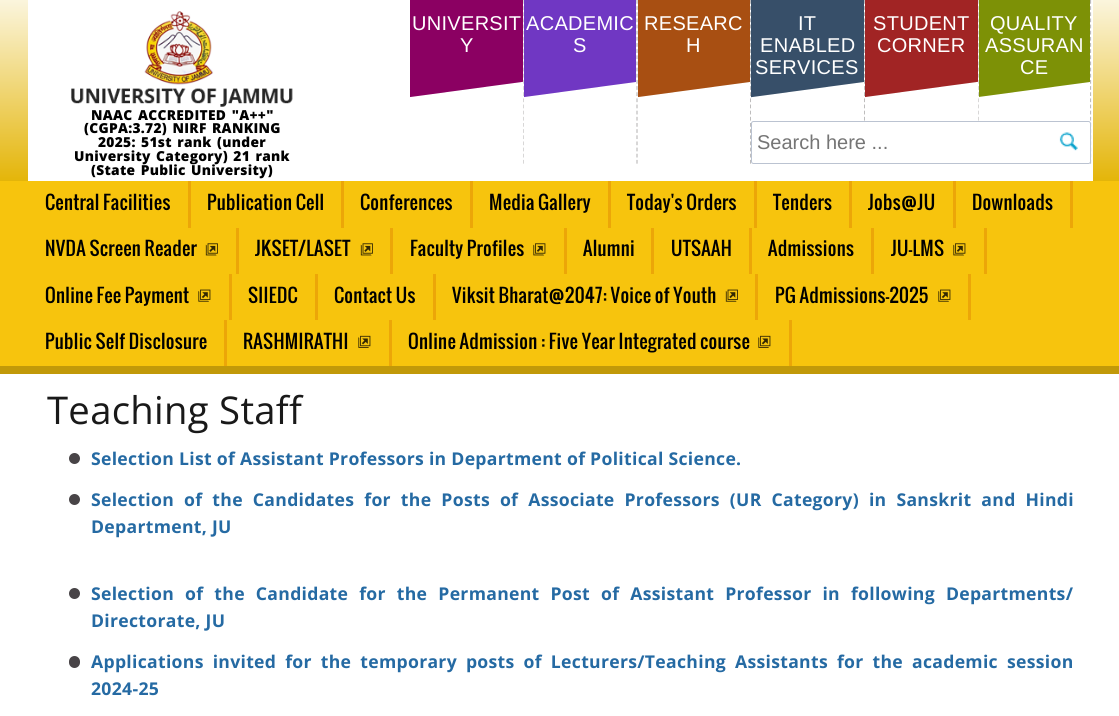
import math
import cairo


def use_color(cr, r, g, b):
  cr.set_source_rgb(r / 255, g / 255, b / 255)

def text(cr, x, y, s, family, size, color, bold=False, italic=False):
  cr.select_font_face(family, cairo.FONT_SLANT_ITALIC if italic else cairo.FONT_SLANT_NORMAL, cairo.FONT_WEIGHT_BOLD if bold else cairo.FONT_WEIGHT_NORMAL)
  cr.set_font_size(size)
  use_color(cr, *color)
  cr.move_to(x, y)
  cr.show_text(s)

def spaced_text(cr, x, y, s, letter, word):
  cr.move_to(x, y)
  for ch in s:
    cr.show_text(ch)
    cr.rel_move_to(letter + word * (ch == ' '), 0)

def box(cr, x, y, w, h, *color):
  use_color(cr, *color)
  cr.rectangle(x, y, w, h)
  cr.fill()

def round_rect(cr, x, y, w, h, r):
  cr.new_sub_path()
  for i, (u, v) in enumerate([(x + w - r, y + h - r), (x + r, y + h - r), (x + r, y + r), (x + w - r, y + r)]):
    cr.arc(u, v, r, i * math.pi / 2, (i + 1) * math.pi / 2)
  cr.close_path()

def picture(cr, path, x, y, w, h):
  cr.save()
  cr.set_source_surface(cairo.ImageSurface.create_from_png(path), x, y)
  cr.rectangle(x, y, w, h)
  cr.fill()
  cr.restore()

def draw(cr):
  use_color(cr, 255, 255, 255)
  cr.paint()
  gradient = cairo.LinearGradient(560, 0, 560, 181)
  gradient.add_color_stop_rgba(0, 0.984, 0.961, 0.867, 1)
  gradient.add_color_stop_rgba(1, 0.894, 0.71, 0.035, 1)
  cr.set_source(gradient)
  cr.rectangle(0, 0, 1119, 181)
  cr.fill()
  box(cr, 28, 0, 1065, 181, 255, 255, 255)
  picture(cr, "img_01.png", 71, 11, 222, 96)
  cr.new_path()
  cr.move_to(523, 0)
  cr.line_to(523, 164)
  use_color(cr, 190, 189, 189)
  cr.set_line_width(1.2)
  cr.set_dash([3.75, 2.4])
  cr.stroke()
  box(cr, 410, 0, 113, 98, 139, 0, 98)
  cr.save()
  cr.rectangle(410, 0, 113, 164)
  cr.clip()
  use_color(cr, 255, 255, 255)
  cr.new_path()
  cr.move_to(366, 103)
  cr.line_to(566, 76)
  cr.line_to(566, 164)
  cr.line_to(366, 164)
  cr.close_path()
  cr.fill()
  cr.restore()
  cr.new_path()
  cr.move_to(637, 0)
  cr.line_to(637, 164)
  use_color(cr, 190, 189, 189)
  cr.stroke()
  box(cr, 524, 0, 112, 98, 112, 55, 195)
  cr.save()
  cr.rectangle(524, 0, 112, 164)
  cr.clip()
  use_color(cr, 255, 255, 255)
  cr.new_path()
  cr.move_to(480, 103)
  cr.line_to(680, 76)
  cr.line_to(680, 164)
  cr.line_to(480, 164)
  cr.close_path()
  cr.fill()
  cr.restore()
  cr.new_path()
  cr.move_to(750.5, 0)
  cr.line_to(750.5, 164)
  use_color(cr, 190, 189, 189)
  cr.stroke()
  box(cr, 638, 0, 112, 98, 168, 79, 18)
  cr.save()
  cr.rectangle(638, 0, 112, 164)
  cr.clip()
  use_color(cr, 255, 255, 255)
  cr.new_path()
  cr.move_to(594, 103)
  cr.line_to(794, 76)
  cr.line_to(794, 164)
  cr.line_to(594, 164)
  cr.close_path()
  cr.fill()
  cr.restore()
  cr.new_path()
  cr.move_to(864.5, 0)
  cr.line_to(864.5, 164)
  use_color(cr, 190, 189, 189)
  cr.stroke()
  box(cr, 751, 0, 113, 98, 55, 79, 105)
  cr.save()
  cr.rectangle(751, 0, 113, 164)
  cr.clip()
  use_color(cr, 255, 255, 255)
  cr.new_path()
  cr.move_to(708, 103)
  cr.line_to(908, 76)
  cr.line_to(908, 164)
  cr.line_to(708, 164)
  cr.close_path()
  cr.fill()
  cr.restore()
  cr.new_path()
  cr.move_to(978, 0)
  cr.line_to(978, 164)
  use_color(cr, 190, 189, 189)
  cr.stroke()
  box(cr, 865, 0, 113, 98, 161, 36, 36)
  cr.save()
  cr.rectangle(865, 0, 113, 164)
  cr.clip()
  use_color(cr, 255, 255, 255)
  cr.new_path()
  cr.move_to(821, 103)
  cr.line_to(1021, 76)
  cr.line_to(1021, 164)
  cr.line_to(821, 164)
  cr.close_path()
  cr.fill()
  cr.restore()
  cr.new_path()
  cr.move_to(1090.5, 0)
  cr.line_to(1090.5, 164)
  use_color(cr, 190, 189, 189)
  cr.stroke()
  box(cr, 979, 0, 111, 97, 125, 145, 6)
  cr.save()
  cr.rectangle(979, 0, 111, 164)
  cr.clip()
  use_color(cr, 255, 255, 255)
  cr.new_path()
  cr.move_to(934, 103)
  cr.line_to(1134, 76)
  cr.line_to(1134, 164)
  cr.line_to(934, 164)
  cr.close_path()
  cr.fill()
  cr.restore()
  use_color(cr, 255, 255, 255)
  round_rect(cr, 751.5, 121.5, 339, 42, 2)
  cr.fill_preserve()
  use_color(cr, 187, 195, 209)
  cr.set_line_width(1)
  cr.set_dash([])
  cr.stroke()
  picture(cr, "img_02.png", 1059, 132, 19, 19)
  box(cr, 0, 181, 1119, 185, 247, 196, 13)
  box(cr, 0, 366, 1119, 8, 193, 153, 9)
  box(cr, 188, 181, 3, 47, 236, 166, 8)
  box(cr, 341, 181, 3, 47, 236, 166, 8)
  box(cr, 470, 181, 3, 47, 236, 166, 8)
  box(cr, 608, 181, 3, 47, 236, 166, 8)
  box(cr, 754, 181, 3, 47, 236, 166, 8)
  box(cr, 849, 181, 3, 47, 236, 166, 8)
  box(cr, 953, 181, 3, 47, 236, 166, 8)
  box(cr, 1070, 181, 3, 47, 236, 166, 8)
  box(cr, 236, 228, 3, 46, 236, 166, 8)
  picture(cr, "img_03.png", 205, 243, 13, 13)
  box(cr, 390, 228, 3, 46, 236, 166, 8)
  picture(cr, "img_03.png", 360, 243, 13, 13)
  box(cr, 564, 228, 3, 46, 236, 166, 8)
  picture(cr, "img_04.png", 533, 243, 13, 13)
  box(cr, 651, 228, 3, 46, 236, 166, 8)
  box(cr, 749, 228, 3, 46, 236, 166, 8)
  box(cr, 871, 228, 3, 46, 236, 166, 8)
  box(cr, 984, 228, 3, 46, 236, 166, 8)
  picture(cr, "img_04.png", 953, 243, 13, 13)
  box(cr, 229, 274, 3, 46, 236, 166, 8)
  picture(cr, "img_05.png", 198, 289, 13, 13)
  box(cr, 315, 274, 3, 46, 236, 166, 8)
  box(cr, 433, 274, 3, 46, 236, 166, 8)
  box(cr, 755, 274, 3, 46, 236, 166, 8)
  picture(cr, "img_06.png", 725, 289, 13, 13)
  box(cr, 968, 274, 3, 46, 236, 166, 8)
  picture(cr, "img_05.png", 938, 289, 13, 13)
  box(cr, 224, 320, 3, 46, 236, 166, 8)
  box(cr, 389, 320, 3, 46, 236, 166, 8)
  picture(cr, "img_07.png", 358, 335, 13, 13)
  box(cr, 789, 320, 3, 46, 236, 166, 8)
  picture(cr, "img_07.png", 758, 335, 13, 13)
  use_color(cr, 72, 68, 71)
  cr.arc(74.5, 458.5, 5.5, 0, 2 * math.pi)
  cr.fill()
  cr.arc(74.5, 499.5, 5.5, 0, 2 * math.pi)
  cr.fill()
  cr.arc(74.5, 593.5, 5.5, 0, 2 * math.pi)
  cr.fill()
  round_rect(cr, 69, 656, 11, 12, 5.5)
  cr.fill()
  cr.select_font_face("Open Sans ExtraBold")
  cr.set_font_size(13.75)
  use_color(cr, 0, 0, 0)
  spaced_text(cr, 91, 120, "NAAC ACCREDITED \"A++\"", 0.3, 1.5)
  spaced_text(cr, 84, 133, "(CGPA:3.72) NIRF RANKING", 0.3, 1.5)
  spaced_text(cr, 98, 147, "2025: 51st rank (under", 0.3, 1.5)
  spaced_text(cr, 74, 161, "University Category) 21 rank", 0.3, 1.5)
  spaced_text(cr, 91, 175, "(State Public University)", 0.3, 1.5)
  cr.select_font_face("Liberation Sans")
  cr.set_font_size(20)
  use_color(cr, 255, 255, 255)
  spaced_text(cr, 412, 30, "UNIVERSIT", 0.3, 0)
  spaced_text(cr, 460, 52, "Y", 0.3, 0)
  spaced_text(cr, 526, 30, "ACADEMIC", 0.3, 0)
  spaced_text(cr, 573, 52, "S", 0.3, 0)
  spaced_text(cr, 644, 30, "RESEARC", 0.3, 0)
  spaced_text(cr, 686, 52, "H", 0.3, 0)
  spaced_text(cr, 798, 30, "IT", 0.3, 0)
  spaced_text(cr, 760, 52, "ENABLED", 0.3, 0)
  spaced_text(cr, 755, 74, "SERVICES", 0.3, 0)
  spaced_text(cr, 873, 30, "STUDENT", 0.3, 0)
  spaced_text(cr, 877, 52, "CORNER", 0.3, 0)
  spaced_text(cr, 990, 30, "QUALITY", 0.3, 0)
  spaced_text(cr, 985, 52, "ASSURAN", 0.3, 0)
  spaced_text(cr, 1020, 74, "CE", 0.3, 0)
  text(cr, 757, 149, "Search here ...", "Liberation Sans", 20, (117, 117, 117))
  cr.select_font_face("Oswald")
  cr.set_font_size(18.6)
  use_color(cr, 0, 0, 0)
  spaced_text(cr, 45, 210, "Central Facilities", 0.3, 0)
  spaced_text(cr, 207, 210, "Publication Cell", 0.3, 0)
  spaced_text(cr, 360, 210, "Conferences", 0.3, 0)
  spaced_text(cr, 489, 210, "Media Gallery", 0.3, 0)
  spaced_text(cr, 627, 210, "Today's Orders", 0.3, 0)
  spaced_text(cr, 773, 210, "Tenders", 0.3, 0)
  spaced_text(cr, 868, 210, "Jobs@JU", 0.3, 0)
  spaced_text(cr, 972, 210, "Downloads", 0.3, 0)
  spaced_text(cr, 45, 256, "NVDA Screen Reader", 0.3, 0)
  spaced_text(cr, 255, 256, "JKSET/LASET", 0.3, 0)
  spaced_text(cr, 410, 256, "Faculty Profiles", 0.3, 0)
  spaced_text(cr, 583, 256, "Alumni", 0.3, 0)
  spaced_text(cr, 671, 256, "UTSAAH", 0.3, 0)
  spaced_text(cr, 768, 256, "Admissions", 0.3, 0)
  spaced_text(cr, 891, 256, "JU-LMS", 0.3, 0)
  spaced_text(cr, 45, 303, "Online Fee Payment", 0.3, 0)
  spaced_text(cr, 248, 303, "SIIEDC", 0.3, 0)
  spaced_text(cr, 334, 303, "Contact Us", 0.3, 0)
  spaced_text(cr, 452, 303, "Viksit Bharat@2047: Voice of Youth", 0.3, 0)
  spaced_text(cr, 775, 303, "PG Admissions-2025", 0.3, 0)
  spaced_text(cr, 45, 349, "Public Self Disclosure", 0.3, 0)
  spaced_text(cr, 243, 349, "RASHMIRATHI", 0.3, 0)
  spaced_text(cr, 408, 349, "Online Admission : Five Year Integrated course", 0.3, 0)
  cr.select_font_face("Open Sans")
  cr.set_font_size(38.25)
  use_color(cr, 25, 25, 25)
  spaced_text(cr, 47, 424, "Teaching Staff", 0.3, 0)
  cr.select_font_face("Open Sans", cairo.FONT_SLANT_NORMAL, cairo.FONT_WEIGHT_BOLD)
  cr.set_font_size(17.6)
  use_color(cr, 37, 106, 163)
  spaced_text(cr, 91, 465, "Selection List of Assistant Professors in Department of Political Science.", 0.3, 0)
  spaced_text(cr, 91, 506, "Selection of the Candidates for the Posts of Associate Professors (UR Category) in Sanskrit and Hindi", 0.3, 5.1)
  spaced_text(cr, 91, 533, "Department, JU", 0.3, 0)
  spaced_text(cr, 91, 600, "Selection of the Candidate for the Permanent Post of Assistant Professor in following Departments/", 0.3, 6.1)
  spaced_text(cr, 91, 627, "Directorate, JU", 0.3, 0)
  spaced_text(cr, 91, 668, "Applications invited for the temporary posts of Lecturers/Teaching Assistants for the academic session", 0.3, 4.1)
  spaced_text(cr, 91, 695, "2024-25", 0.3, 0)


surface = cairo.ImageSurface(cairo.FORMAT_RGB24, 1119, 716)
cr = cairo.Context(surface)
options = cairo.FontOptions()
options.set_hint_metrics(cairo.HINT_METRICS_OFF)
options.set_hint_style(cairo.HINT_STYLE_NONE)
cr.set_font_options(options)
cr.set_miter_limit(4)
draw(cr)
surface.write_to_png("out.png")
